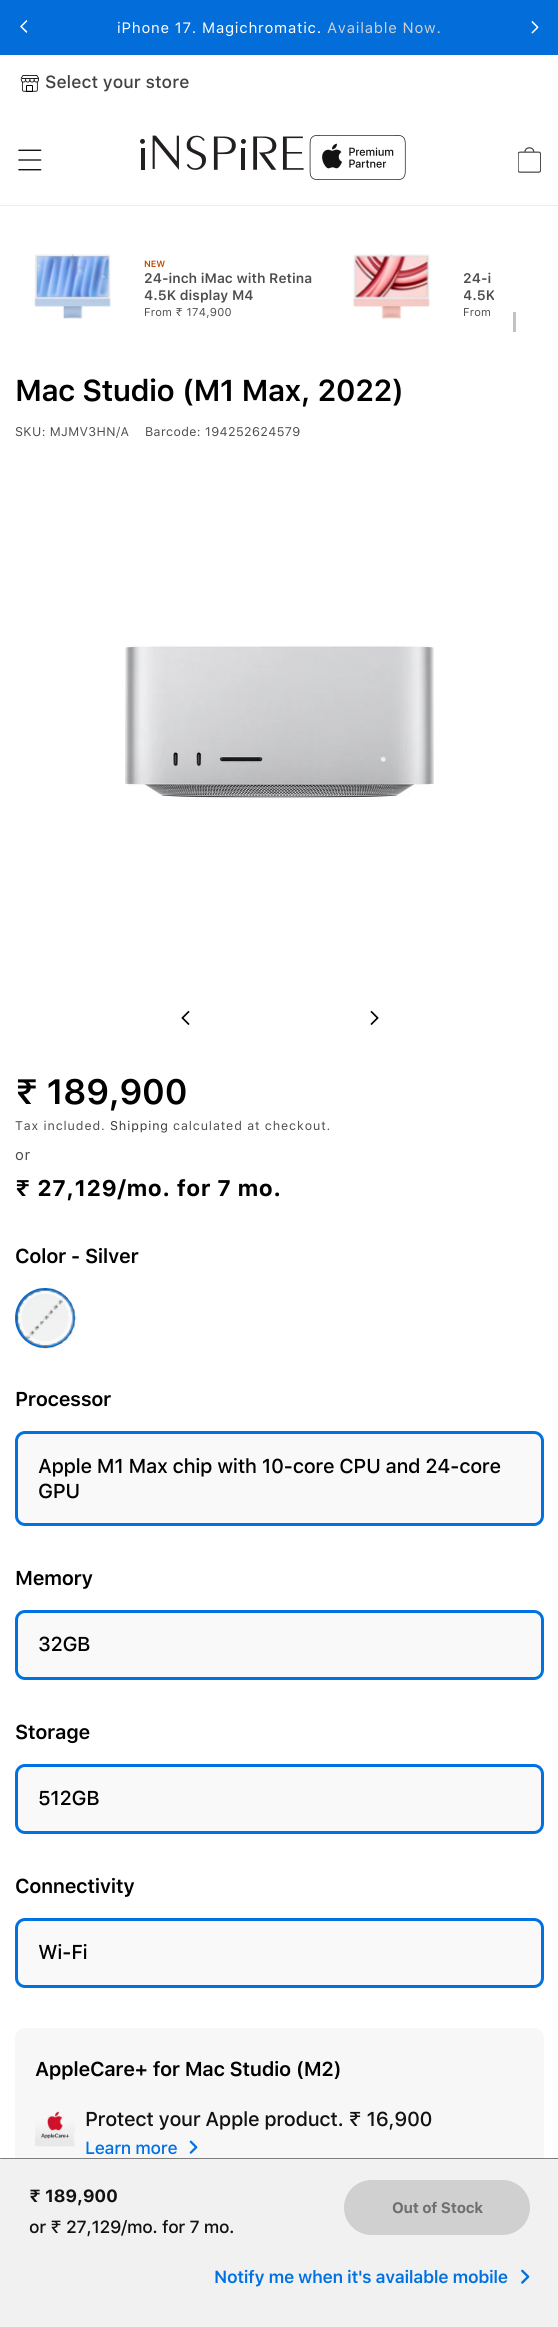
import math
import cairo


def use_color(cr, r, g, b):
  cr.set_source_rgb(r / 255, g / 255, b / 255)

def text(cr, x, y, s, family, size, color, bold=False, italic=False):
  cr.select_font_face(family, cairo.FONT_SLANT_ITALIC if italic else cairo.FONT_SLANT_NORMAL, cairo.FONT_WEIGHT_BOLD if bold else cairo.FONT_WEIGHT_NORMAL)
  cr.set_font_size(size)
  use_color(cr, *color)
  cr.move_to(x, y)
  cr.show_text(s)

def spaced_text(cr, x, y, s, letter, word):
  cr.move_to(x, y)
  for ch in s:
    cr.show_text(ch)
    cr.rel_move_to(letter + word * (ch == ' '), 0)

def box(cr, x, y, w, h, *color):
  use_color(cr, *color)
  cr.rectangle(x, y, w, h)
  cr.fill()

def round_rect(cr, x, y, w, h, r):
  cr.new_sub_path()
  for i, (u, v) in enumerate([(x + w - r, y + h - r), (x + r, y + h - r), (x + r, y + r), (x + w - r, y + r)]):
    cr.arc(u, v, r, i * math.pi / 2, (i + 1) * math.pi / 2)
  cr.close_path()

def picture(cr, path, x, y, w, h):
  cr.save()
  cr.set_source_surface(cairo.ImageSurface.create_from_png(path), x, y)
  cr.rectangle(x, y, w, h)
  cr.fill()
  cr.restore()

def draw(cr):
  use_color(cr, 255, 255, 255)
  cr.paint()
  box(cr, 0, 0, 558, 55, 3, 110, 218)
  picture(cr, "img_01.png", 20, 20, 8, 13)
  picture(cr, "img_02.png", 531, 20, 8, 14)
  box(cr, 0, 205, 558, 1, 236, 236, 236)
  picture(cr, "img_03.png", 20, 75, 19, 17)
  picture(cr, "img_04.png", 18, 149, 24, 22)
  picture(cr, "img_05.png", 140, 135, 164, 35)
  picture(cr, "img_06.png", 309, 135, 97, 45)
  picture(cr, "img_07.png", 518, 147, 23, 26)
  picture(cr, "img_08.png", 34, 254, 77, 65)
  picture(cr, "img_09.png", 353, 254, 77, 66)
  box(cr, 513, 312, 3, 20, 194, 194, 194)
  picture(cr, "img_10.png", 125, 645, 309, 154)
  picture(cr, "img_11.png", 181, 1010, 9, 15)
  picture(cr, "img_12.png", 370, 1010, 9, 15)
  picture(cr, "img_13.png", 21, 1294, 48, 47)
  cr.arc(45, 1318, 28.5, 0, 2 * math.pi)
  use_color(cr, 0, 113, 227)
  cr.set_line_width(3)
  cr.stroke()
  picture(cr, "img_14.png", 16, 1288, 61, 61)
  use_color(cr, 249, 249, 249)
  round_rect(cr, 16.5, 1432.5, 526, 92, 8.5)
  cr.fill_preserve()
  use_color(cr, 0, 113, 227)
  cr.stroke()
  use_color(cr, 249, 249, 249)
  round_rect(cr, 16.5, 1611.5, 526, 67, 8.5)
  cr.fill_preserve()
  use_color(cr, 0, 113, 227)
  cr.stroke()
  use_color(cr, 249, 249, 249)
  round_rect(cr, 16.5, 1765.5, 526, 67, 8.5)
  cr.fill_preserve()
  use_color(cr, 0, 113, 227)
  cr.stroke()
  use_color(cr, 249, 249, 249)
  round_rect(cr, 16.5, 1919.5, 526, 67, 8.5)
  cr.fill_preserve()
  use_color(cr, 0, 113, 227)
  cr.stroke()
  use_color(cr, 247, 247, 247)
  round_rect(cr, 15, 2028, 529, 208, 10)
  cr.fill()
  picture(cr, "img_15.png", 35, 2111, 40, 36)
  picture(cr, "img_16.png", 189, 2140, 9, 14)
  box(cr, 0, 2158, 558, 169, 241, 241, 241)
  use_color(cr, 125, 125, 125)
  round_rect(cr, 0, 2158, 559, 1, 0.5)
  cr.fill()
  use_color(cr, 208, 208, 208)
  round_rect(cr, 344, 2180, 186, 55, 27.5)
  cr.fill()
  picture(cr, "img_17.png", 521, 2269, 9, 15)
  cr.select_font_face("SF Pro Text")
  cr.set_font_size(15)
  use_color(cr, 255, 255, 255)
  spaced_text(cr, 117, 33, "iPhone 17. Magichromatic.", 0.75, 0)
  use_color(cr, 208, 208, 208)
  spaced_text(cr, 327, 33, "Available Now.", 0.75, 0)
  text(cr, 45, 88, "Select your store", "SF Pro Text Medium", 17.5, (66, 66, 69))
  text(cr, 144, 267, "NEW", "SF Pro Text SemiBold", 9, (191, 72, 0))
  text(cr, 144, 283, "24-inch iMac with Retina", "SF Pro Text SemiBold", 13.75, (77, 77, 77))
  text(cr, 144, 300, "4.5K display M4", "SF Pro Text SemiBold", 13.75, (77, 77, 77))
  cr.select_font_face("SF Pro Text")
  cr.set_font_size(11.25)
  spaced_text(cr, 144, 316, "From ₹ 174,900", 0.25, 0)
  text(cr, 463, 283, "24-i", "SF Pro Text SemiBold", 13.75, (77, 77, 77))
  cr.save()
  cr.rectangle(464, 271, 30, 33)
  cr.clip()
  text(cr, 463, 300, "4.5K", "SF Pro Text SemiBold", 13.75, (77, 77, 77))
  cr.restore()
  cr.select_font_face("SF Pro Text")
  cr.set_font_size(11.25)
  spaced_text(cr, 463, 316, "From", 0.25, 0)
  cr.select_font_face("SF Pro Text SemiBold")
  cr.set_font_size(30)
  use_color(cr, 0, 0, 0)
  spaced_text(cr, 15, 401, "Mac Studio (M1 Max, 2022)", -0.6, 0)
  cr.select_font_face("SF Pro Text")
  cr.set_font_size(12.5)
  use_color(cr, 77, 77, 77)
  spaced_text(cr, 15, 436, "SKU: MJMV3HN/A", 0.4, 0)
  spaced_text(cr, 145, 436, "Barcode: 194252624579", 0.4, 0)
  cr.select_font_face("SF Pro Text SemiBold")
  cr.set_font_size(35)
  use_color(cr, 0, 0, 0)
  spaced_text(cr, 15, 1104, "₹ 189,900", -0.75, 0)
  cr.select_font_face("SF Pro Text")
  cr.set_font_size(12.5)
  use_color(cr, 77, 77, 77)
  spaced_text(cr, 15, 1130, "Tax included.", 0.9, 0)
  use_color(cr, 54, 54, 54)
  spaced_text(cr, 110, 1130, "Shipping", 0.9, 0)
  use_color(cr, 77, 77, 77)
  spaced_text(cr, 173, 1130, "calculated at checkout.", 0.9, 0)
  cr.set_font_size(15)
  spaced_text(cr, 15, 1160, "or", 0.75, 0)
  cr.select_font_face("SF Pro Text", cairo.FONT_SLANT_NORMAL, cairo.FONT_WEIGHT_BOLD)
  cr.set_font_size(22.5)
  use_color(cr, 0, 0, 0)
  spaced_text(cr, 15, 1196, "₹ 27,129/mo. for 7 mo.", 0.45, 0)
  cr.select_font_face("SF Pro Text SemiBold")
  cr.set_font_size(20)
  spaced_text(cr, 15, 1263, "Color - Silver", -0.4, 0)
  spaced_text(cr, 15, 1406, "Processor", -0.4, 0)
  cr.select_font_face("SF Pro Text Medium")
  spaced_text(cr, 38, 1473, "Apple M1 Max chip with 10‑core CPU and 24‑core", -0.4, 0)
  spaced_text(cr, 38, 1498, "GPU", -0.4, 0)
  cr.select_font_face("SF Pro Text SemiBold")
  spaced_text(cr, 15, 1585, "Memory", -0.4, 0)
  cr.select_font_face("SF Pro Text Medium")
  spaced_text(cr, 38, 1651, "32GB", -0.4, 0)
  cr.select_font_face("SF Pro Text SemiBold")
  spaced_text(cr, 15, 1739, "Storage", -0.4, 0)
  cr.select_font_face("SF Pro Text Medium")
  spaced_text(cr, 38, 1805, "512GB", -0.4, 0)
  cr.select_font_face("SF Pro Text SemiBold")
  spaced_text(cr, 15, 1893, "Connectivity", -0.4, 0)
  cr.select_font_face("SF Pro Text Medium")
  spaced_text(cr, 38, 1959, "Wi-Fi", -0.4, 0)
  cr.select_font_face("SF Pro Text SemiBold")
  spaced_text(cr, 35, 2076, "AppleCare+ for Mac Studio (M2)", -0.4, 0)
  cr.select_font_face("SF Pro Text Medium")
  use_color(cr, 18, 18, 18)
  spaced_text(cr, 85, 2126, "Protect your Apple product. ₹ 16,900", -0.4, 0)
  cr.set_font_size(17.5)
  use_color(cr, 0, 113, 227)
  spaced_text(cr, 85, 2154, "Learn more", -0.35, 0)
  cr.select_font_face("SF Pro Text", cairo.FONT_SLANT_NORMAL, cairo.FONT_WEIGHT_BOLD)
  use_color(cr, 18, 18, 18)
  spaced_text(cr, 29, 2202, "₹ 189,900", -0.35, 0)
  cr.select_font_face("SF Pro Text Medium")
  spaced_text(cr, 29, 2233, "or ₹ 27,129/mo. for 7 mo.", -0.35, 0)
  cr.select_font_face("SF Pro Text", cairo.FONT_SLANT_NORMAL, cairo.FONT_WEIGHT_BOLD)
  cr.set_font_size(15)
  use_color(cr, 110, 110, 115)
  spaced_text(cr, 392, 2213, "Out of Stock", -0.25, 0)
  cr.select_font_face("SF Pro Text SemiBold")
  cr.set_font_size(17.5)
  use_color(cr, 0, 113, 227)
  spaced_text(cr, 214, 2283, "Notify me when it's available mobile", -0.4, 0)


surface = cairo.ImageSurface(cairo.FORMAT_RGB24, 558, 2327)
cr = cairo.Context(surface)
options = cairo.FontOptions()
options.set_hint_metrics(cairo.HINT_METRICS_OFF)
options.set_hint_style(cairo.HINT_STYLE_NONE)
cr.set_font_options(options)
cr.set_miter_limit(4)
draw(cr)
surface.write_to_png("out.png")
